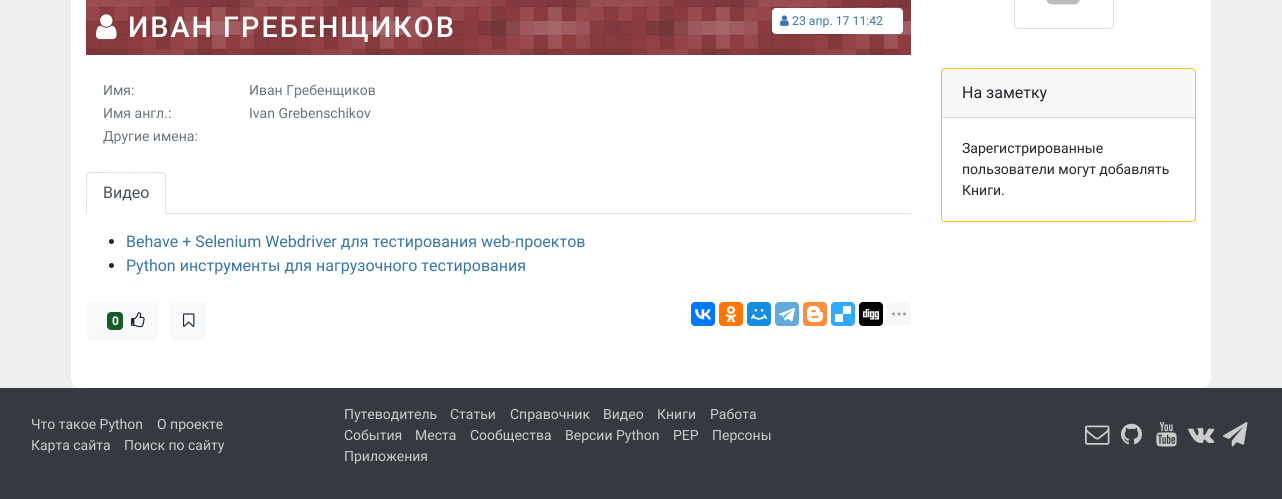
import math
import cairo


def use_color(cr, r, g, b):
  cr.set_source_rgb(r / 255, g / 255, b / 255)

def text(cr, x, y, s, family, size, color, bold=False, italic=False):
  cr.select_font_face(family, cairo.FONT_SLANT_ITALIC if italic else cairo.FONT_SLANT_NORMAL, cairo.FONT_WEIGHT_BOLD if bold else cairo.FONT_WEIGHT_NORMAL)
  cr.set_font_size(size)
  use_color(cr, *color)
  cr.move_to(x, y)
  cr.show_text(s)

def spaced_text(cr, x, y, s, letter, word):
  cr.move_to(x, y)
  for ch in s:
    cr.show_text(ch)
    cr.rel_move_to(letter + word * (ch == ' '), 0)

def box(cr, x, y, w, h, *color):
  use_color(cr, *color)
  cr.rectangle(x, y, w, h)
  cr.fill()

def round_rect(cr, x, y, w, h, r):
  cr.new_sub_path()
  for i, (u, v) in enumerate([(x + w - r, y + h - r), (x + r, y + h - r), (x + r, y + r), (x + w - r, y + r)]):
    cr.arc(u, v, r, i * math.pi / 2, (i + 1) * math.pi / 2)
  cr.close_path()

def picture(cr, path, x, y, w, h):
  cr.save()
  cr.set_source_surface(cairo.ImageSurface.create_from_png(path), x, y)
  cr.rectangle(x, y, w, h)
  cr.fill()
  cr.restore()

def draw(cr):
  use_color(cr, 239, 239, 239)
  cr.paint()
  use_color(cr, 255, 255, 255)
  round_rect(cr, 71, -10, 1140, 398, 10)
  cr.fill()
  picture(cr, "img_01.png", 86, 0, 825, 55)
  picture(cr, "img_02.png", 96, 14, 21, 26)
  round_rect(cr, 772, 8, 131, 26, 4)
  cr.fill()
  picture(cr, "img_03.png", 780, 15, 9, 11)
  box(cr, 166, 213, 745, 1, 222, 226, 230)
  cr.new_path()
  cr.move_to(90, 172)
  cr.line_to(87, 173)
  cr.line_to(88, 174)
  cr.line_to(90, 173)
  cr.line_to(102, 173)
  cr.curve_to(109, 173, 162, 172, 164, 174)
  cr.line_to(165, 173)
  cr.line_to(162, 172)
  cr.close_path()
  cr.fill()
  cr.new_path()
  cr.move_to(166, 214)
  cr.line_to(166, 176)
  cr.curve_to(166, 175, 166, 174, 165, 173)
  cr.line_to(164, 174)
  cr.curve_to(166, 176, 165, 208, 165, 213)
  cr.close_path()
  cr.fill()
  use_color(cr, 255, 255, 255)
  cr.new_path()
  cr.move_to(166, 214)
  cr.line_to(165, 213)
  cr.line_to(87, 213)
  cr.line_to(86, 214)
  cr.close_path()
  cr.fill()
  use_color(cr, 222, 226, 230)
  cr.new_path()
  cr.move_to(86, 214)
  cr.line_to(87, 213)
  cr.curve_to(87, 208, 86, 176, 88, 174)
  cr.line_to(87, 173)
  cr.line_to(86, 176)
  cr.close_path()
  cr.fill()
  use_color(cr, 33, 37, 41)
  cr.arc(111.5, 241.5, 2.5, 0, 2 * math.pi)
  cr.fill()
  cr.arc(111.5, 265.5, 2.5, 0, 2 * math.pi)
  cr.fill()
  use_color(cr, 248, 249, 250)
  round_rect(cr, 86, 302, 72, 38, 4)
  cr.fill()
  use_color(cr, 21, 93, 37)
  round_rect(cr, 107, 312, 16, 18, 4)
  cr.fill()
  picture(cr, "img_04.png", 131, 312, 14, 16)
  use_color(cr, 248, 249, 250)
  round_rect(cr, 170, 302, 37, 38, 4)
  cr.fill()
  picture(cr, "img_05.png", 183, 313, 12, 14)
  use_color(cr, 0, 119, 255)
  round_rect(cr, 691, 302, 24, 24, 4)
  cr.fill()
  picture(cr, "img_06.png", 695, 309, 16, 11)
  use_color(cr, 255, 119, 0)
  round_rect(cr, 719, 302, 24, 24, 4)
  cr.fill()
  picture(cr, "img_07.png", 725, 306, 12, 16)
  use_color(cr, 22, 141, 226)
  round_rect(cr, 747, 302, 24, 24, 4)
  cr.fill()
  picture(cr, "img_08.png", 751, 309, 16, 11)
  use_color(cr, 100, 169, 220)
  round_rect(cr, 775, 302, 24, 24, 4)
  cr.fill()
  picture(cr, "img_09.png", 779, 308, 16, 14)
  use_color(cr, 251, 143, 61)
  round_rect(cr, 803, 302, 24, 24, 4)
  cr.fill()
  picture(cr, "img_10.png", 807, 306, 16, 16)
  use_color(cr, 49, 169, 255)
  round_rect(cr, 831, 302, 24, 24, 4)
  cr.fill()
  picture(cr, "img_11.png", 835, 306, 16, 16)
  use_color(cr, 0, 0, 0)
  round_rect(cr, 859, 302, 24, 24, 4)
  cr.fill()
  picture(cr, "img_12.png", 863, 309, 16, 11)
  use_color(cr, 247, 247, 247)
  round_rect(cr, 887, 302, 24, 24, 4)
  cr.fill()
  picture(cr, "img_13.png", 892, 312, 14, 4)
  round_rect(cr, 1014.5, -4.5, 99, 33, 3.5)
  use_color(cr, 222, 226, 230)
  cr.set_line_width(1)
  cr.stroke()
  picture(cr, "img_14.png", 1046, 0, 34, 5)
  round_rect(cr, 941.5, 68.5, 254, 153, 3.5)
  use_color(cr, 255, 193, 7)
  cr.stroke()
  cr.set_source_rgba(0, 0, 0, 0.03)
  cr.rectangle(942, 69, 253, 48)
  cr.fill()
  box(cr, 942, 117, 253, 1, 216, 216, 216)
  box(cr, 0, 388, 1282, 111, 52, 58, 64)
  picture(cr, "img_15.png", 1085, 425, 25, 20)
  picture(cr, "img_16.png", 1121, 423, 21, 22)
  picture(cr, "img_17.png", 1156, 422, 21, 25)
  picture(cr, "img_18.png", 1188, 428, 27, 15)
  picture(cr, "img_19.png", 1223, 422, 25, 25)
  cr.select_font_face("Roboto Medium")
  cr.set_font_size(28.75)
  use_color(cr, 255, 255, 255)
  spaced_text(cr, 128, 37, "ИВАН ГРЕБЕНЩИКОВ", 2, 0)
  text(cr, 792, 25, "23 апр. 17 11:42", "Roboto", 12.25, (55, 118, 171))
  text(cr, 103, 95, "Имя:", "Roboto", 14, (108, 117, 125))
  text(cr, 249, 95, "Иван Гребенщиков", "Roboto", 14, (108, 117, 125))
  text(cr, 103, 118, "Имя англ.:", "Roboto", 14, (108, 117, 125))
  text(cr, 249, 118, "Ivan Grebenschikov", "Roboto", 14, (108, 117, 125))
  text(cr, 103, 141, "Другие имена:", "Roboto", 14, (108, 117, 125))
  text(cr, 103, 198, "Видео", "Roboto", 16, (73, 80, 87))
  text(cr, 126, 247, "Behave + Selenium Webdriver для тестирования web-проектов", "Roboto", 16, (55, 118, 171))
  text(cr, 126, 271, "Python инструменты для нагрузочного тестирования", "Roboto", 16, (55, 118, 171))
  text(cr, 112, 325, "0", "Roboto", 12, (255, 255, 255), bold=True)
  text(cr, 962, 98, "На заметку", "Roboto", 16, (33, 37, 41))
  text(cr, 962, 153, "Зарегистрированные", "Roboto", 14, (33, 37, 41))
  text(cr, 962, 174, "пользователи могут добавлять", "Roboto", 14, (33, 37, 41))
  text(cr, 962, 195, "Книги.", "Roboto", 14, (33, 37, 41))
  text(cr, 31, 429, "Что такое Python", "Roboto", 14, (204, 204, 204))
  text(cr, 157, 429, "О проекте", "Roboto", 14, (204, 204, 204))
  text(cr, 31, 450, "Карта сайта", "Roboto", 14, (204, 204, 204))
  text(cr, 124, 450, "Поиск по сайту", "Roboto", 14, (204, 204, 204))
  text(cr, 344, 419, "Путеводитель", "Roboto", 14, (204, 204, 204))
  text(cr, 450, 419, "Статьи", "Roboto", 14, (204, 204, 204))
  text(cr, 510, 419, "Справочник", "Roboto", 14, (204, 204, 204))
  text(cr, 603, 419, "Видео", "Roboto", 14, (204, 204, 204))
  text(cr, 657, 419, "Книги", "Roboto", 14, (204, 204, 204))
  text(cr, 710, 419, "Работа", "Roboto", 14, (204, 204, 204))
  text(cr, 344, 440, "События", "Roboto", 14, (204, 204, 204))
  text(cr, 415, 440, "Места", "Roboto", 14, (204, 204, 204))
  text(cr, 470, 440, "Сообщества", "Roboto", 14, (204, 204, 204))
  text(cr, 565, 440, "Версии Python", "Roboto", 14, (204, 204, 204))
  text(cr, 673, 440, "PEP", "Roboto", 14, (204, 204, 204))
  text(cr, 712, 440, "Персоны", "Roboto", 14, (204, 204, 204))
  text(cr, 344, 461, "Приложения", "Roboto", 14, (204, 204, 204))


surface = cairo.ImageSurface(cairo.FORMAT_RGB24, 1282, 499)
cr = cairo.Context(surface)
options = cairo.FontOptions()
options.set_hint_metrics(cairo.HINT_METRICS_OFF)
options.set_hint_style(cairo.HINT_STYLE_NONE)
cr.set_font_options(options)
cr.set_miter_limit(4)
draw(cr)
surface.write_to_png("out.png")
